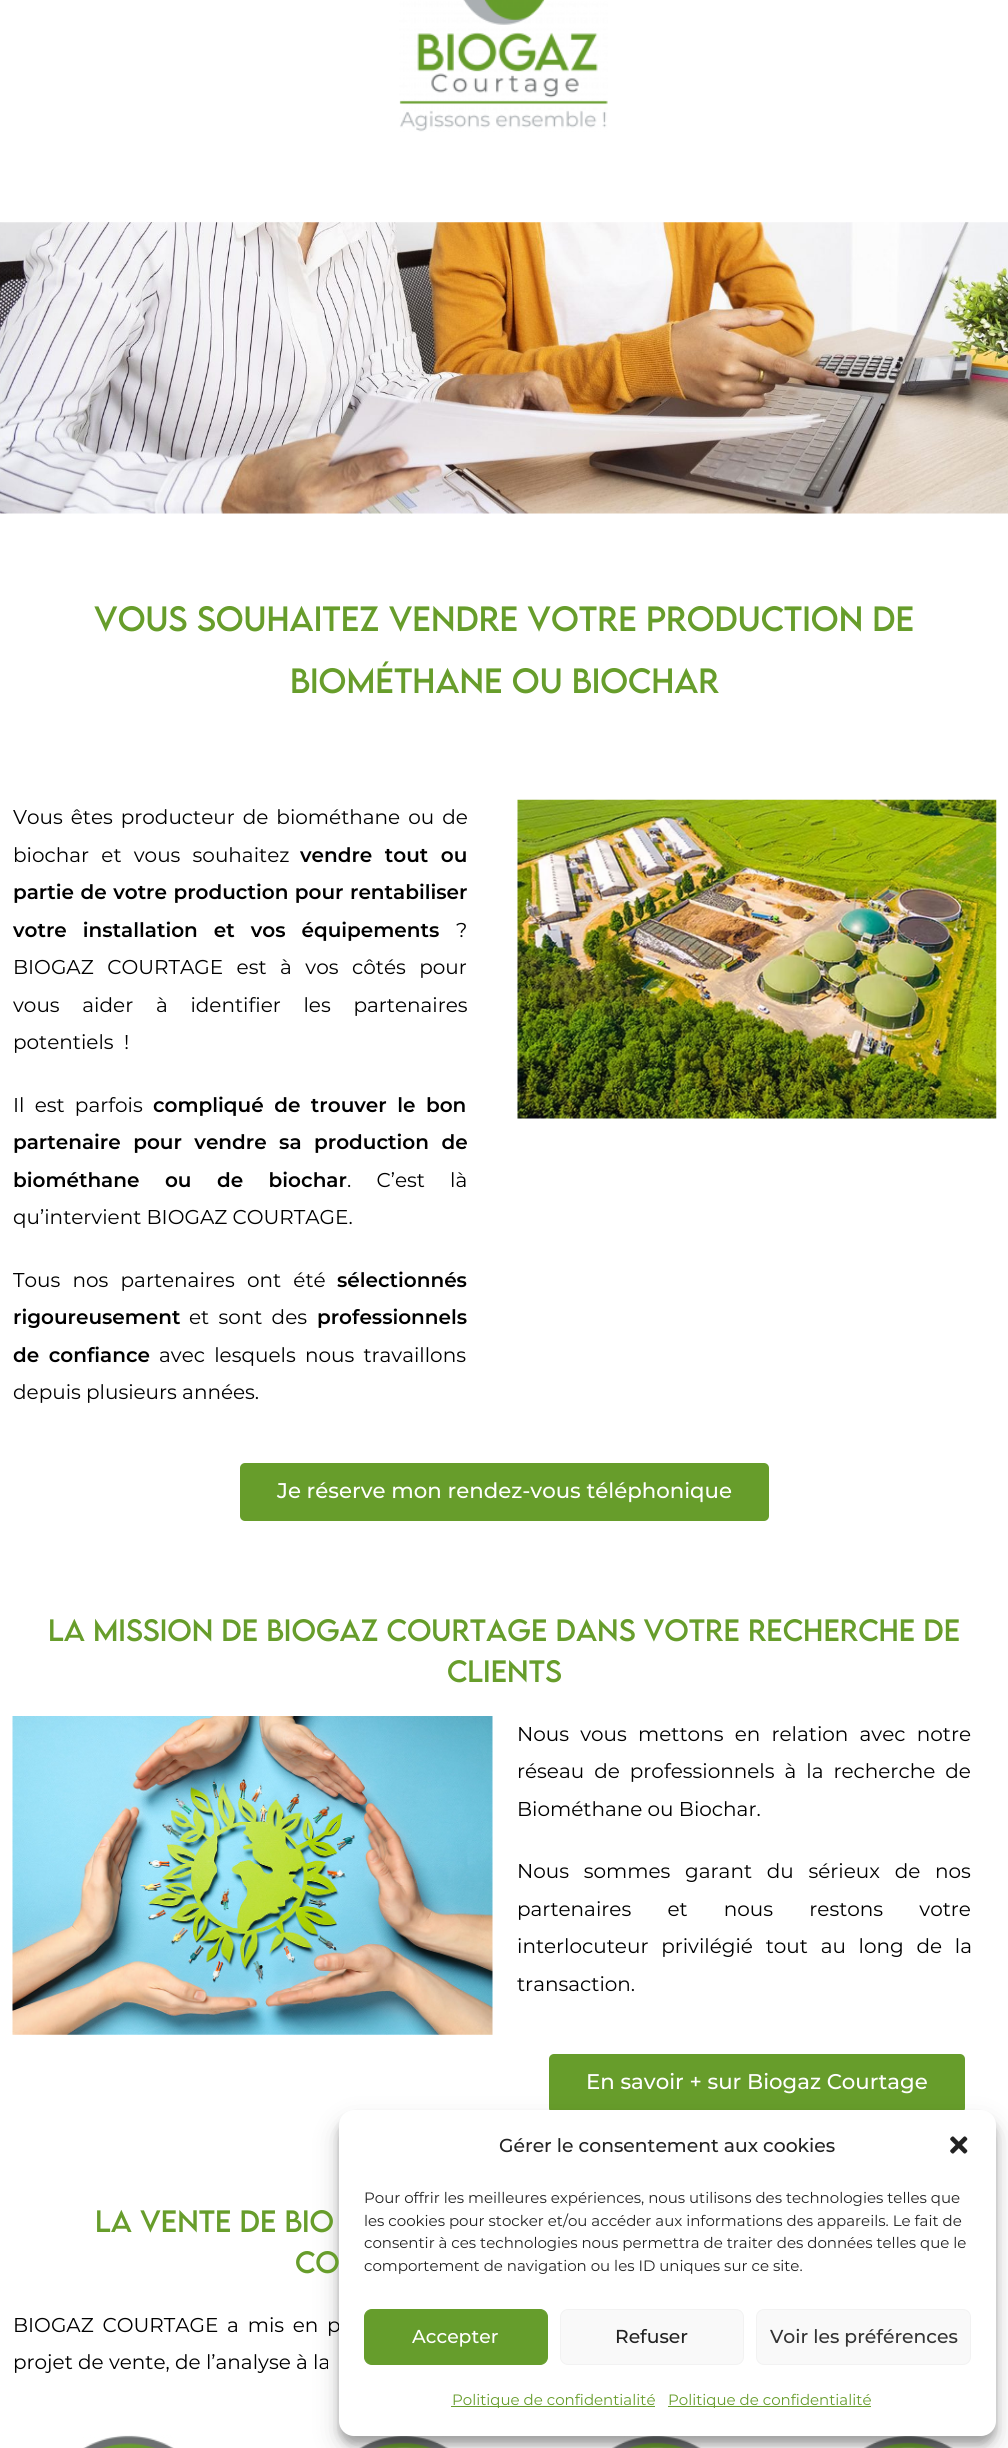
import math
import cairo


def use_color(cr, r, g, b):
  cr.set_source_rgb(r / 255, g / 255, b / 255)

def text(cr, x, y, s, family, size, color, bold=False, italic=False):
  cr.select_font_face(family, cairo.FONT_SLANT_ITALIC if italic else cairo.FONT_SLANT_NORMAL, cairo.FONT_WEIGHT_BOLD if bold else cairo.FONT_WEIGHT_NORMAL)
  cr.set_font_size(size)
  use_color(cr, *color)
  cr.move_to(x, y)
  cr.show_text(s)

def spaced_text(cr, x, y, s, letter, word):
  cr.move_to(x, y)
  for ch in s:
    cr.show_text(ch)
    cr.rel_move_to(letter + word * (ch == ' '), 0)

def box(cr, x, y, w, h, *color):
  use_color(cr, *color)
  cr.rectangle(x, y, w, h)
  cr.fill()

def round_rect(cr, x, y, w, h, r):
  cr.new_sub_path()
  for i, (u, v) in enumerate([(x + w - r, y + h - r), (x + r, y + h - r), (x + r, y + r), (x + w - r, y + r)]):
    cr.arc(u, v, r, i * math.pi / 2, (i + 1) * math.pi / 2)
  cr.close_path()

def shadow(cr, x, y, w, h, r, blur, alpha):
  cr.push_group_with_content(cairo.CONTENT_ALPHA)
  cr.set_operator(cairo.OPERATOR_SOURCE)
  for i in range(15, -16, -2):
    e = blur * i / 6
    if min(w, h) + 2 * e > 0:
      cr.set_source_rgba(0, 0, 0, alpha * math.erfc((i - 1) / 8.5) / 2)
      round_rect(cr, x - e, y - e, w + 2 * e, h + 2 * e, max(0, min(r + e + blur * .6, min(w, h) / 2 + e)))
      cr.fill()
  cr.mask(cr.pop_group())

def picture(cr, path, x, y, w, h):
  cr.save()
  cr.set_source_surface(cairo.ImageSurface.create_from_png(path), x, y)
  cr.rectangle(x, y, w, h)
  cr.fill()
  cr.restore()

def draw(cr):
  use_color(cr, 255, 255, 255)
  cr.paint()
  picture(cr, "img_01.png", 399, 0, 209, 132)
  picture(cr, "img_02.png", 0, 222, 1008, 292)
  picture(cr, "img_03.png", 517, 799, 480, 320)
  use_color(cr, 103, 157, 43)
  round_rect(cr, 240, 1463, 529, 58, 5)
  cr.fill()
  picture(cr, "img_04.png", 12, 1716, 481, 319)
  round_rect(cr, 549, 2054, 416, 59, 5)
  cr.fill()
  picture(cr, "img_05.png", 83, 2435, 91, 13)
  picture(cr, "img_06.png", 359, 2436, 90, 12)
  picture(cr, "img_07.png", 612, 2436, 89, 12)
  picture(cr, "img_08.png", 864, 2436, 89, 12)
  use_color(cr, 0, 0, 0)
  shadow(cr, 339, 2118, 657, 326, 15, 4, 0.23)
  shadow(cr, 339, 2123, 657, 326, 15, 12.5, 0.19)
  text(cr, 94, 631, "Vous souhaitez vendre votre production de", "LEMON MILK", 31.25, (103, 157, 43))
  text(cr, 290, 693, "biométhane ou biochar", "LEMON MILK", 31.25, (103, 157, 43))
  cr.select_font_face("Montserrat")
  cr.set_font_size(20)
  use_color(cr, 0, 0, 0)
  spaced_text(cr, 13, 824, "Vous êtes producteur de biométhane ou de", 0, 2.75)
  spaced_text(cr, 13, 862, "biochar et vous souhaitez", 0, 7)
  cr.select_font_face("Montserrat SemiBold")
  spaced_text(cr, 300, 862, "vendre tout ou", 0, 7)
  spaced_text(cr, 13, 899, "partie de votre production pour rentabiliser", 0, 1)
  spaced_text(cr, 13, 937, "votre installation et vos équipements", 0, 10.5)
  text(cr, 456, 937, "?", "Montserrat", 20, (0, 0, 0))
  spaced_text(cr, 13, 974, "BIOGAZ COURTAGE est à vos côtés pour", 0, 8.25)
  spaced_text(cr, 13, 1012, "vous aider à identifier les partenaires", 0, 17.5)
  text(cr, 13, 1049, "potentiels  !", "Montserrat", 20, (0, 0, 0))
  spaced_text(cr, 13, 1112, "Il est parfois", 0, 5)
  cr.select_font_face("Montserrat SemiBold")
  spaced_text(cr, 153, 1112, "compliqué de trouver le bon", 0, 5)
  spaced_text(cr, 13, 1149, "partenaire pour vendre sa production de", 0, 7)
  spaced_text(cr, 13, 1187, "biométhane ou de biochar", 0, 20)
  cr.select_font_face("Montserrat")
  spaced_text(cr, 347, 1187, ". C’est là", 0, 20)
  text(cr, 13, 1224, "qu’intervient BIOGAZ COURTAGE.", "Montserrat", 20, (0, 0, 0))
  spaced_text(cr, 13, 1287, "Tous nos partenaires ont été", 0, 7)
  text(cr, 337, 1287, "sélectionnés", "Montserrat SemiBold", 20, (0, 0, 0))
  text(cr, 13, 1324, "rigoureusement", "Montserrat SemiBold", 20, (0, 0, 0))
  cr.select_font_face("Montserrat")
  spaced_text(cr, 189, 1324, "et sont des", 0, 4)
  text(cr, 317, 1324, "professionnels", "Montserrat SemiBold", 20, (0, 0, 0))
  spaced_text(cr, 13, 1362, "de confiance", 0, 4)
  cr.select_font_face("Montserrat")
  spaced_text(cr, 159, 1362, "avec lesquels nous travaillons", 0, 4)
  text(cr, 13, 1399, "depuis plusieurs années.", "Montserrat", 20, (0, 0, 0))
  text(cr, 277, 1498, "Je réserve mon rendez-vous téléphonique", "Montserrat Medium", 21.25, (255, 255, 255))
  text(cr, 48, 1641, "La mission de BIOGAZ COURTAGE dans votre recherche de", "LEMON MILK", 27.5, (103, 157, 43))
  text(cr, 447, 1682, "clients", "LEMON MILK", 27.5, (103, 157, 43))
  cr.select_font_face("Montserrat")
  cr.set_font_size(20)
  use_color(cr, 0, 0, 0)
  spaced_text(cr, 517, 1741, "Nous vous mettons en relation avec notre", 0, 6)
  spaced_text(cr, 517, 1778, "réseau de professionnels à la recherche de", 0, 4.75)
  text(cr, 517, 1816, "Biométhane ou Biochar.", "Montserrat", 20, (0, 0, 0))
  spaced_text(cr, 517, 1878, "Nous sommes garant du sérieux de nos", 0, 9.5)
  spaced_text(cr, 517, 1916, "partenaires et nous restons votre", 0, 31)
  spaced_text(cr, 517, 1953, "interlocuteur privilégié tout au long de la", 0, 7.5)
  text(cr, 517, 1991, "transaction.", "Montserrat", 20, (0, 0, 0))
  text(cr, 586, 2089, "En savoir + sur Biogaz Courtage", "Montserrat Medium", 21.25, (255, 255, 255))
  text(cr, 95, 2232, "La vente de Bio", "LEMON MILK", 27.5, (103, 157, 43))
  text(cr, 295, 2273, "co", "LEMON MILK", 27.5, (103, 157, 43))
  cr.select_font_face("Montserrat")
  cr.set_font_size(20)
  use_color(cr, 0, 0, 0)
  spaced_text(cr, 13, 2332, "BIOGAZ COURTAGE a mis en p", 0, 3.5)
  text(cr, 13, 2369, "projet de vente, de l’analyse à la", "Montserrat", 20, (0, 0, 0))
  use_color(cr, 255, 255, 255)
  round_rect(cr, 339, 2110, 657, 326, 15)
  cr.fill()
  text(cr, 499, 2152, "Gérer le consentement aux cookies", "Montserrat Medium", 18.75, (34, 34, 34))
  picture(cr, "img_09.png", 950, 2136, 18, 18)
  text(cr, 364, 2203, "Pour offrir les meilleures expériences, nous utilisons des technologies telles que", "Montserrat", 15, (34, 34, 34))
  text(cr, 364, 2226, "les cookies pour stocker et/ou accéder aux informations des appareils. Le fait de", "Montserrat", 15, (34, 34, 34))
  text(cr, 364, 2248, "consentir à ces technologies nous permettra de traiter des données telles que le", "Montserrat", 15, (34, 34, 34))
  text(cr, 364, 2271, "comportement de navigation ou les ID uniques sur ce site.", "Montserrat", 15, (34, 34, 34))
  use_color(cr, 102, 157, 44)
  round_rect(cr, 364.5, 2309.5, 183, 55, 7.5)
  cr.fill_preserve()
  cr.set_line_width(1)
  cr.stroke()
  text(cr, 412, 2343, "Accepter", "Montserrat Medium", 18.75, (255, 255, 255))
  use_color(cr, 249, 249, 249)
  round_rect(cr, 560.5, 2309.5, 183, 55, 7.5)
  cr.fill_preserve()
  use_color(cr, 242, 242, 242)
  cr.stroke()
  text(cr, 615, 2343, "Refuser", "Montserrat Medium", 18.75, (34, 34, 34))
  use_color(cr, 249, 249, 249)
  round_rect(cr, 756.5, 2309.5, 214, 55, 7.5)
  cr.fill_preserve()
  use_color(cr, 242, 242, 242)
  cr.stroke()
  text(cr, 770, 2343, "Voir les préférences", "Montserrat Medium", 18.75, (51, 51, 51))
  box(cr, 451, 2406, 204, 1, 102, 157, 44)
  text(cr, 452, 2405, "Politique de confidentialité", "Montserrat", 15, (103, 157, 43))
  box(cr, 668, 2406, 203, 1, 102, 157, 44)
  text(cr, 668, 2405, "Politique de confidentialité", "Montserrat", 15, (103, 157, 43))


surface = cairo.ImageSurface(cairo.FORMAT_RGB24, 1008, 2448)
cr = cairo.Context(surface)
options = cairo.FontOptions()
options.set_hint_metrics(cairo.HINT_METRICS_OFF)
options.set_hint_style(cairo.HINT_STYLE_NONE)
cr.set_font_options(options)
cr.set_miter_limit(4)
draw(cr)
surface.write_to_png("out.png")
